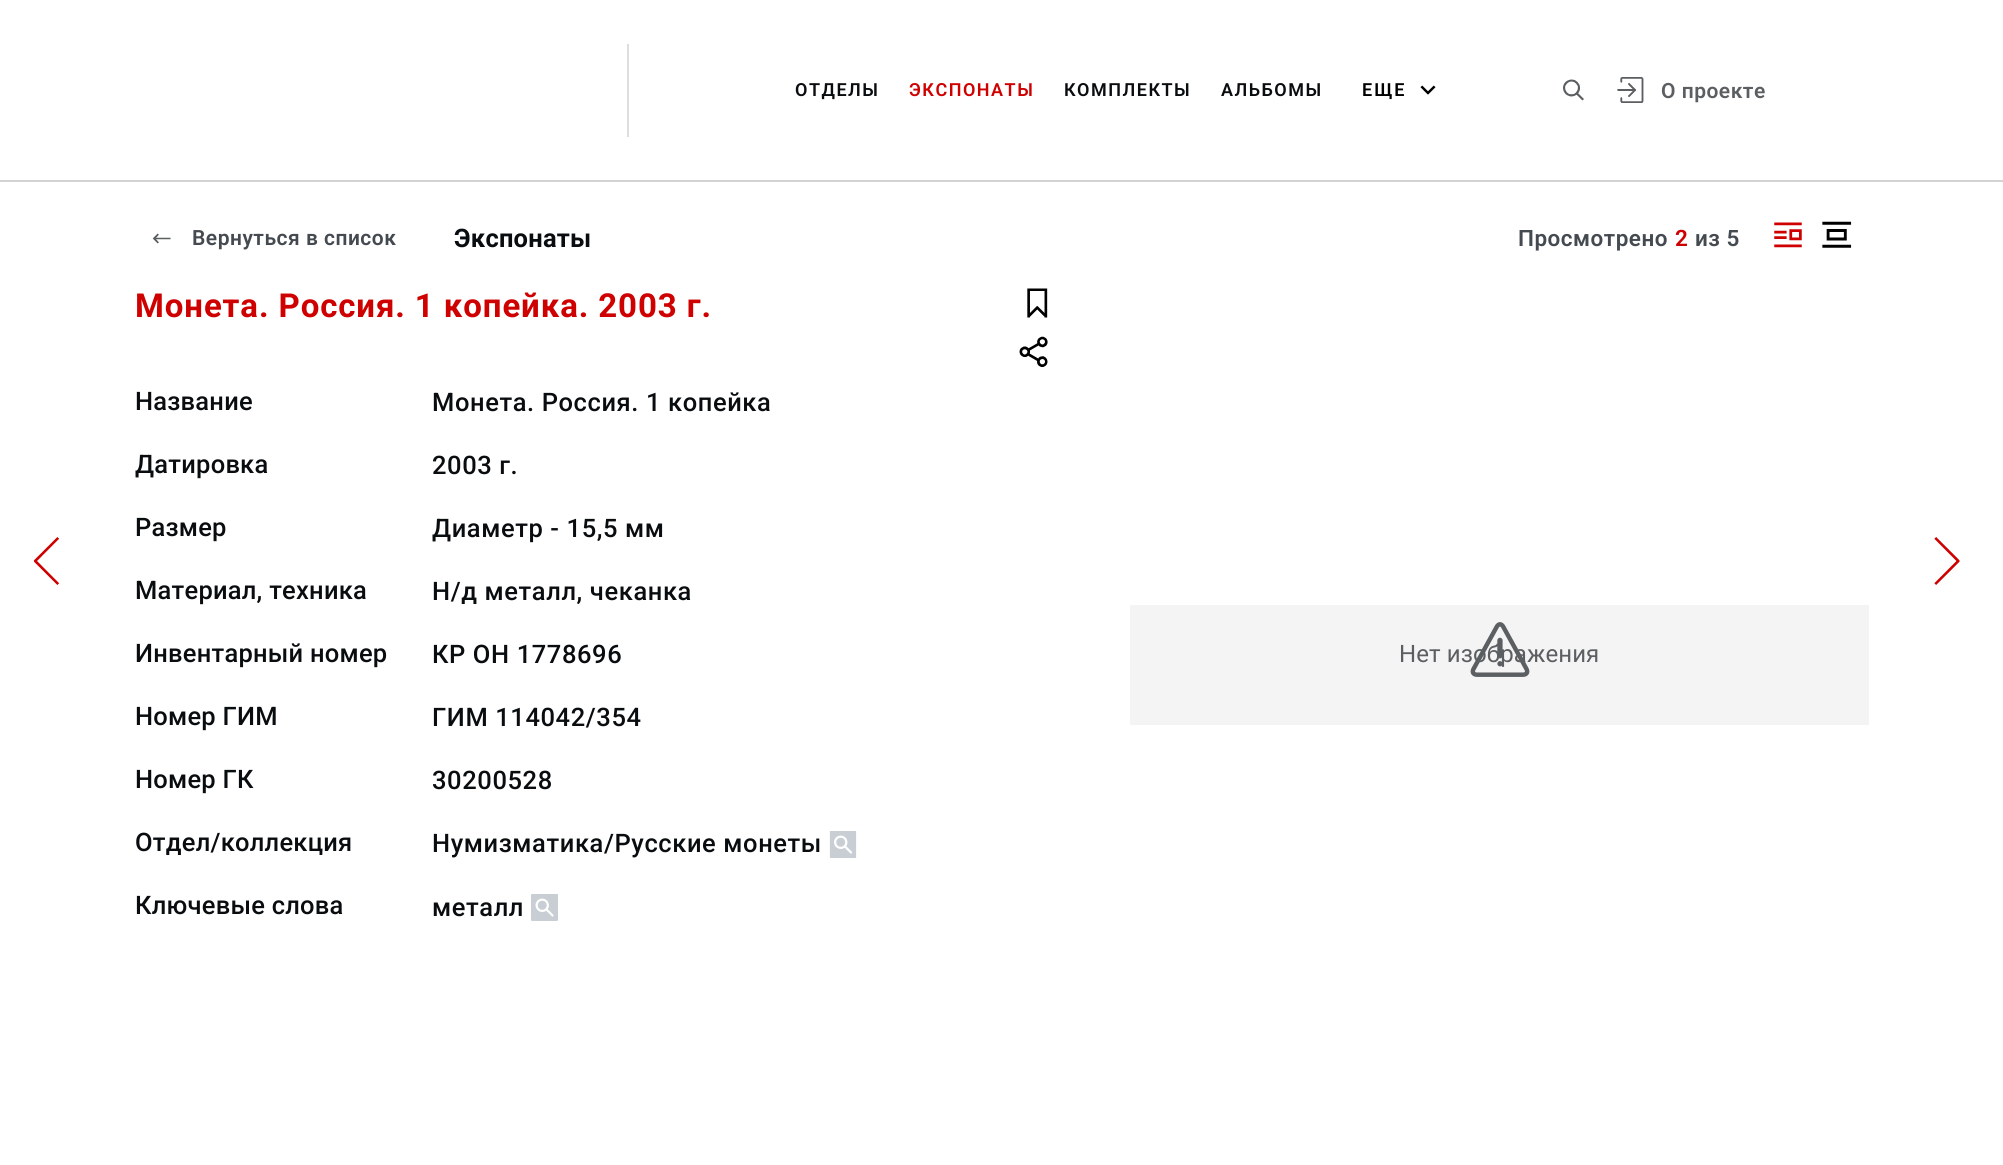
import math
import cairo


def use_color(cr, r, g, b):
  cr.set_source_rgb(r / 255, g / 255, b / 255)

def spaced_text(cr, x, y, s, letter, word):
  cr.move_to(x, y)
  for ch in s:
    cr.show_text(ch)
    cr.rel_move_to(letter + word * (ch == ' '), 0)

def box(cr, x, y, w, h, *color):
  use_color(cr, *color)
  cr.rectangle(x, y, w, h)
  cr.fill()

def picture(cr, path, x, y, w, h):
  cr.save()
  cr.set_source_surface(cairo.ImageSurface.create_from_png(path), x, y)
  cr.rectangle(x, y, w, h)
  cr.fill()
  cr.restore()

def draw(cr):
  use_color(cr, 255, 255, 255)
  cr.paint()
  box(cr, 0, 180, 2003, 2, 211, 211, 211)
  box(cr, 627, 44, 2, 93, 222, 222, 222)
  picture(cr, "img_01.png", 1420, 85, 16, 10)
  picture(cr, "img_02.png", 1563, 79, 21, 22)
  picture(cr, "img_03.png", 1617, 77, 27, 26)
  picture(cr, "img_04.png", 152, 233, 19, 11)
  picture(cr, "img_05.png", 1774, 222, 28, 26)
  picture(cr, "img_06.png", 1822, 221, 30, 27)
  picture(cr, "img_07.png", 33, 537, 26, 48)
  picture(cr, "img_08.png", 1027, 288, 21, 30)
  picture(cr, "img_09.png", 1019, 336, 29, 31)
  picture(cr, "img_10.png", 829, 831, 28, 27)
  picture(cr, "img_11.png", 531, 894, 27, 27)
  box(cr, 1130, 605, 739, 120, 244, 244, 245)
  picture(cr, "img_13.png", 1934, 537, 26, 48)
  cr.select_font_face("Roboto SemiBold")
  cr.set_font_size(18)
  use_color(cr, 10, 13, 16)
  spaced_text(cr, 795, 96, "ОТДЕЛЫ", 1.5, 0)
  use_color(cr, 207, 0, 0)
  spaced_text(cr, 909, 96, "ЭКСПОНАТЫ", 1.5, 0)
  use_color(cr, 10, 13, 16)
  spaced_text(cr, 1064, 96, "КОМПЛЕКТЫ", 1.5, 0)
  spaced_text(cr, 1221, 96, "АЛЬБОМЫ", 1.5, 0)
  use_color(cr, 0, 0, 0)
  spaced_text(cr, 1362, 96, "ЕЩЕ", 2, 0)
  cr.set_font_size(21)
  use_color(cr, 92, 95, 98)
  spaced_text(cr, 1661, 98, "О проекте", 0.5, 0)
  use_color(cr, 68, 74, 80)
  spaced_text(cr, 192, 245, "Вернуться в список", 0.5, 0)
  cr.select_font_face("Roboto", cairo.FONT_SLANT_NORMAL, cairo.FONT_WEIGHT_BOLD)
  cr.set_font_size(25.5)
  use_color(cr, 10, 13, 16)
  spaced_text(cr, 454, 247, "Экспонаты", 0.25, 0)
  cr.select_font_face("Roboto SemiBold")
  cr.set_font_size(22.5)
  use_color(cr, 68, 74, 80)
  spaced_text(cr, 1518, 246, "Просмотрено", 0.5, 0)
  use_color(cr, 207, 0, 0)
  spaced_text(cr, 1675, 246, "2", 0.5, 0)
  use_color(cr, 68, 74, 80)
  spaced_text(cr, 1695, 246, "из 5", 0.5, 0)
  cr.select_font_face("Roboto", cairo.FONT_SLANT_NORMAL, cairo.FONT_WEIGHT_BOLD)
  cr.set_font_size(33)
  use_color(cr, 207, 0, 0)
  spaced_text(cr, 135, 317, "Монета. Россия. 1 копейка. 2003 г.", 0.9, 0)
  cr.select_font_face("Roboto Medium")
  cr.set_font_size(25.5)
  use_color(cr, 10, 13, 16)
  spaced_text(cr, 135, 410, "Название", 0.25, 0)
  spaced_text(cr, 432, 411, "Монета. Россия. 1 копейка", 0.6, 0)
  spaced_text(cr, 135, 473, "Датировка", 0.25, 0)
  spaced_text(cr, 432, 474, "2003 г.", 0.6, 0)
  spaced_text(cr, 135, 536, "Размер", 0.25, 0)
  spaced_text(cr, 432, 537, "Диаметр - 15,5 мм", 0.6, 0)
  spaced_text(cr, 135, 599, "Материал, техника", 0.25, 0)
  spaced_text(cr, 432, 600, "Н/д металл, чеканка", 0.6, 0)
  spaced_text(cr, 135, 662, "Инвентарный номер", 0.25, 0)
  spaced_text(cr, 432, 663, "КР ОН 1778696", 0.6, 0)
  spaced_text(cr, 135, 725, "Номер ГИМ", 0.25, 0)
  spaced_text(cr, 432, 726, "ГИМ 114042/354", 0.6, 0)
  spaced_text(cr, 135, 788, "Номер ГК", 0.25, 0)
  spaced_text(cr, 432, 789, "30200528", 0.6, 0)
  spaced_text(cr, 135, 851, "Отдел/коллекция", 0.25, 0)
  spaced_text(cr, 432, 852, "Нумизматика/Русские монеты", 0.6, 0)
  spaced_text(cr, 135, 914, "Ключевые слова", 0.25, 0)
  spaced_text(cr, 432, 916, "металл", 0.6, 0)
  cr.select_font_face("Roboto")
  cr.set_font_size(24)
  use_color(cr, 92, 95, 98)
  spaced_text(cr, 1399, 662, "Нет изображения", 0.1, 0)
  picture(cr, "img_12.png", 1470, 622, 60, 55)


surface = cairo.ImageSurface(cairo.FORMAT_RGB24, 2003, 1165)
cr = cairo.Context(surface)
options = cairo.FontOptions()
options.set_hint_metrics(cairo.HINT_METRICS_OFF)
options.set_hint_style(cairo.HINT_STYLE_NONE)
cr.set_font_options(options)
cr.set_miter_limit(4)
draw(cr)
surface.write_to_png("out.png")
